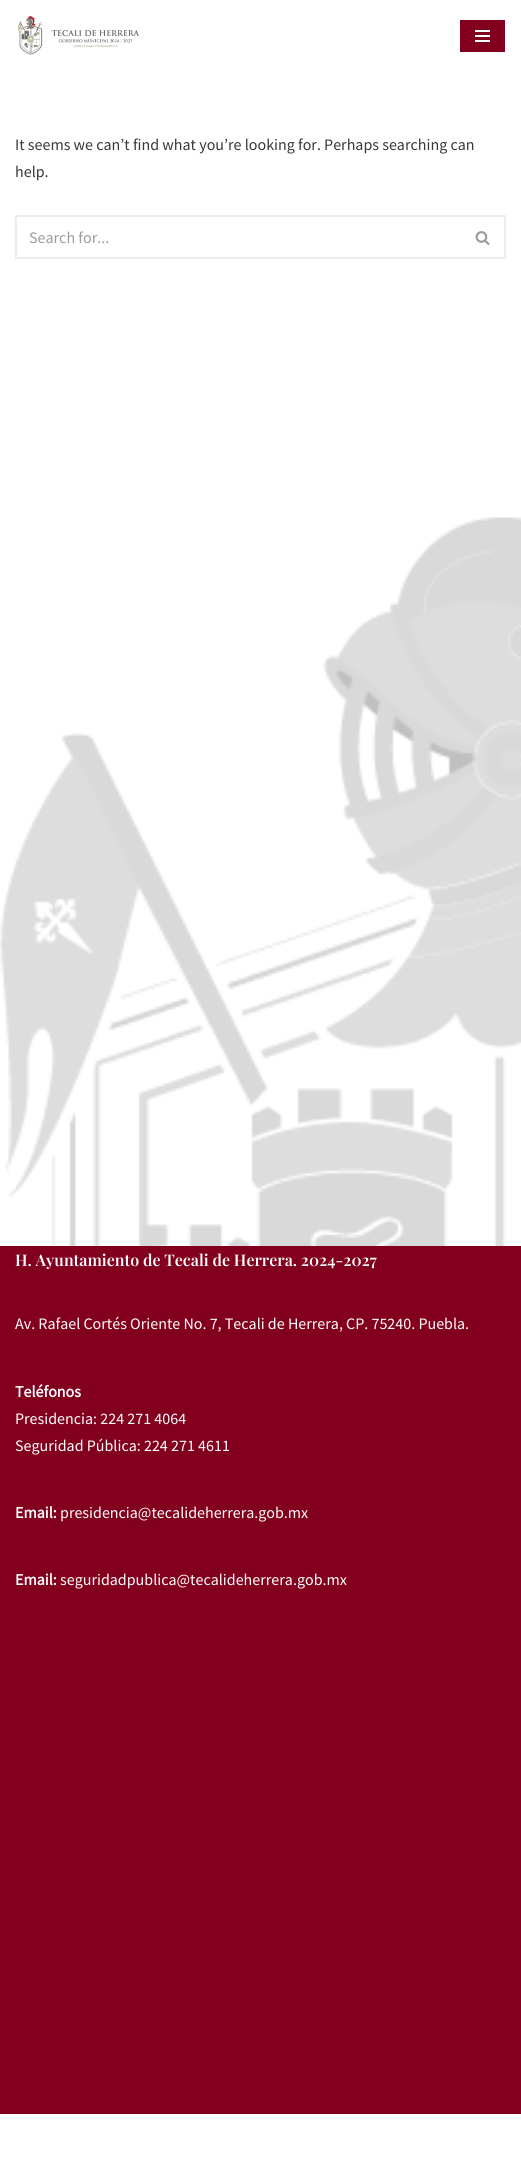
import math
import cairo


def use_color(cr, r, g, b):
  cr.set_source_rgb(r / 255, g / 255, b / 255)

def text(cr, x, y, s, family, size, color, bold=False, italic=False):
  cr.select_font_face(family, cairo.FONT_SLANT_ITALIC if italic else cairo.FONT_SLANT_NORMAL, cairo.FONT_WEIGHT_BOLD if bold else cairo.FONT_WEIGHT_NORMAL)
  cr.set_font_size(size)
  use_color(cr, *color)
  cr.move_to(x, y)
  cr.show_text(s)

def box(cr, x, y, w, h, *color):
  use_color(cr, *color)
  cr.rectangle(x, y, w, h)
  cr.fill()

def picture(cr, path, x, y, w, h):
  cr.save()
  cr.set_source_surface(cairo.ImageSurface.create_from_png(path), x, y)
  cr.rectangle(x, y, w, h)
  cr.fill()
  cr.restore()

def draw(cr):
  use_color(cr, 255, 255, 255)
  cr.paint()
  picture(cr, "img_01.png", 0, 517, 521, 729)
  picture(cr, "img_02.png", 18, 16, 121, 39)
  box(cr, 460, 20, 45, 32, 130, 0, 30)
  box(cr, 475, 30, 15, 2, 254, 254, 254)
  box(cr, 475, 35, 15, 2, 254, 254, 254)
  box(cr, 475, 40, 15, 2, 254, 254, 254)
  box(cr, 15, 215, 491, 2, 237, 237, 237)
  box(cr, 15, 257, 446, 2, 237, 237, 237)
  box(cr, 15, 215, 2, 44, 237, 237, 237)
  box(cr, 504, 215, 2, 44, 237, 237, 237)
  box(cr, 461, 257, 45, 2, 237, 237, 237)
  picture(cr, "img_03.png", 475, 231, 15, 14)
  box(cr, 0, 1246, 521, 868, 130, 0, 30)
  text(cr, 15, 150, "It seems we can’t find what you’re looking for. Perhaps searching can", "Source Sans Pro", 16, (57, 56, 56))
  text(cr, 15, 177, "help.", "Source Sans Pro", 16, (57, 56, 56))
  text(cr, 29, 243, "Search for...", "Source Sans Pro", 16, (156, 156, 156))
  text(cr, 15, 1266, "H. Ayuntamiento de Tecali de Herrera. 2024-2027", "Playfair Display SemiBold", 16, (255, 255, 255))
  text(cr, 15, 1329, "Av. Rafael Cortés Oriente No. 7, Tecali de Herrera, CP. 75240. Puebla.", "Source Sans Pro", 16, (255, 255, 255))
  text(cr, 15, 1397, "Teléfonos", "Source Sans Pro", 16, (255, 255, 255), bold=True)
  text(cr, 15, 1424, "Presidencia: 224 271 4064", "Source Sans Pro", 16, (255, 255, 255))
  text(cr, 15, 1451, "Seguridad Pública: 224 271 4611", "Source Sans Pro", 16, (255, 255, 255))
  text(cr, 15, 1518, "Email:", "Source Sans Pro", 16, (255, 255, 255), bold=True)
  text(cr, 60, 1518, "presidencia@tecalideherrera.gob.mx", "Source Sans Pro", 16, (255, 255, 255))
  text(cr, 15, 1585, "Email:", "Source Sans Pro", 16, (255, 255, 255), bold=True)
  text(cr, 60, 1585, "seguridadpublica@tecalideherrera.gob.mx", "Source Sans Pro", 16, (255, 255, 255))


surface = cairo.ImageSurface(cairo.FORMAT_RGB24, 521, 2157)
cr = cairo.Context(surface)
options = cairo.FontOptions()
options.set_hint_metrics(cairo.HINT_METRICS_OFF)
options.set_hint_style(cairo.HINT_STYLE_NONE)
cr.set_font_options(options)
cr.set_miter_limit(4)
draw(cr)
surface.write_to_png("out.png")
